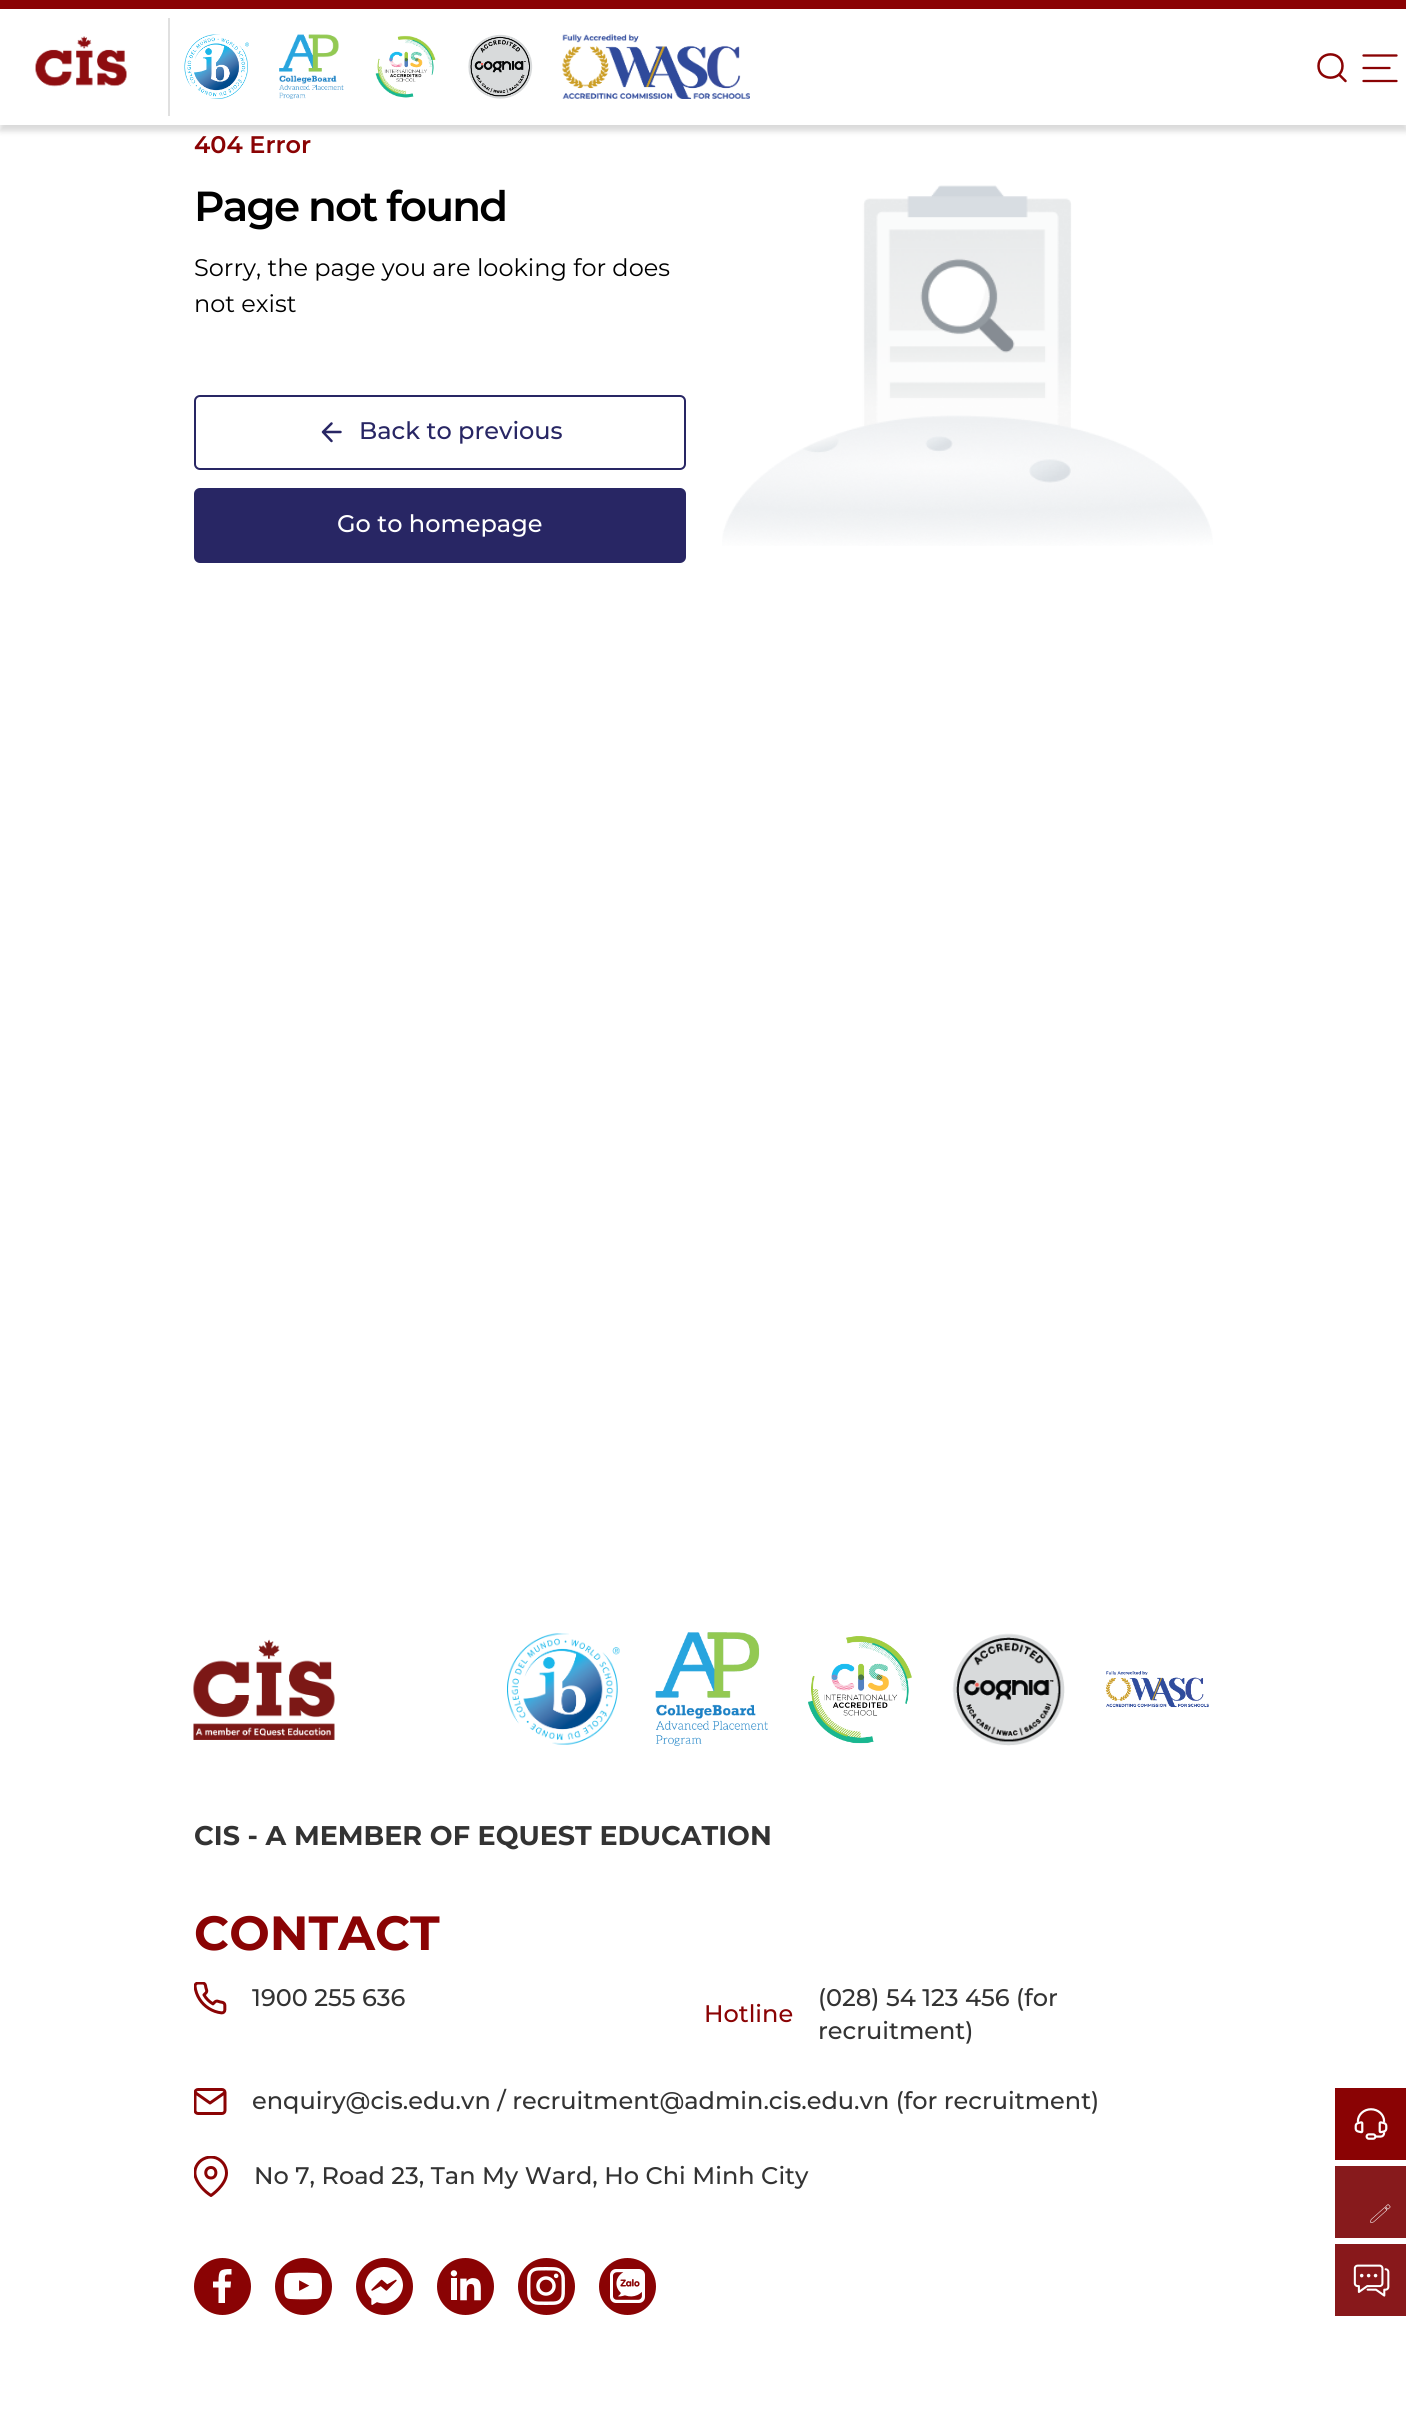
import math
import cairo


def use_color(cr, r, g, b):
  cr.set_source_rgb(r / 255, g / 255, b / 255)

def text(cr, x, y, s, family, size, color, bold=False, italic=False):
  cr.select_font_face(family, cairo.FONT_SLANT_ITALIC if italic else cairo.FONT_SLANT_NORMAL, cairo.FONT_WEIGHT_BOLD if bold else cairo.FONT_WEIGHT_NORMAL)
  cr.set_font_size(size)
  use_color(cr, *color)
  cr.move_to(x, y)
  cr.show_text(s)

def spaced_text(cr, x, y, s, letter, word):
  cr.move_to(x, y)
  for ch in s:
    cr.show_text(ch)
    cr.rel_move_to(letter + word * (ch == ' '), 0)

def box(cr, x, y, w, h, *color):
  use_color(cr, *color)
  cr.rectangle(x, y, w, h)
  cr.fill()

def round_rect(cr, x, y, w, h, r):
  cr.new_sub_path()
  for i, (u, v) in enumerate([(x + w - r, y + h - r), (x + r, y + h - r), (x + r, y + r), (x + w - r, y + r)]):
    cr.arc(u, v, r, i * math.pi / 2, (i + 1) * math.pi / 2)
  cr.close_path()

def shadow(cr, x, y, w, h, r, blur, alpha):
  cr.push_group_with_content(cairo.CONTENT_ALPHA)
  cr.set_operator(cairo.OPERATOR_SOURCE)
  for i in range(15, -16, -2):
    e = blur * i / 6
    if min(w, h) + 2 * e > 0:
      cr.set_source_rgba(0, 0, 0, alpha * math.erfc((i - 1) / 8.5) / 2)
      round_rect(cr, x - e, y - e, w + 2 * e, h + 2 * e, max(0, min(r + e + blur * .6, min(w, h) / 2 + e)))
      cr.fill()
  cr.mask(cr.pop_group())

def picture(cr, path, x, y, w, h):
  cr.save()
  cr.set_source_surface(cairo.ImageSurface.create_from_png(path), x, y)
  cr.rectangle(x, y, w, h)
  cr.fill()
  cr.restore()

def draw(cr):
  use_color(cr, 255, 255, 255)
  cr.paint()
  use_color(cr, 0, 0, 0)
  shadow(cr, 0, 6, 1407, 125, 0, 3, 0.15)
  box(cr, 0, 9, 1406, 116, 255, 255, 255)
  box(cr, 0, 0, 1406, 9, 138, 3, 4)
  box(cr, 168, 18, 2, 98, 224, 224, 224)
  picture(cr, "img_01.png", 35, 36, 92, 51)
  picture(cr, "img_02.png", 184, 34, 65, 65)
  picture(cr, "img_03.png", 279, 34, 65, 65)
  picture(cr, "img_04.png", 375, 35, 61, 63)
  picture(cr, "img_05.png", 468, 34, 65, 65)
  picture(cr, "img_06.png", 562, 34, 188, 65)
  cr.new_path()
  cr.move_to(1345.5, 81)
  cr.line_to(1339, 74.5)
  cr.move_to(1342.5, 66)
  cr.curve_to(1342.5, 81.5, 1318.5, 81.5, 1318.5, 66)
  cr.curve_to(1318.5, 50.5, 1342.5, 50.5, 1342.5, 66)
  cr.close_path()
  use_color(cr, 138, 3, 4)
  cr.set_line_width(2.5)
  cr.set_line_cap(cairo.LINE_CAP_ROUND)
  cr.set_line_join(cairo.LINE_JOIN_ROUND)
  cr.stroke()
  cr.new_path()
  cr.move_to(1363.5, 68)
  cr.line_to(1389.5, 68)
  cr.move_to(1363.5, 55.5)
  cr.line_to(1396.5, 55.5)
  cr.move_to(1363.5, 81)
  cr.line_to(1396.5, 81)
  cr.set_line_width(2.3)
  cr.stroke()
  round_rect(cr, 195, 396, 490, 73, 5)
  use_color(cr, 40, 38, 100)
  cr.set_line_width(2)
  cr.set_line_cap(cairo.LINE_CAP_BUTT)
  cr.set_line_join(cairo.LINE_JOIN_MITER)
  cr.stroke()
  cr.new_path()
  cr.move_to(340.5, 432)
  cr.line_to(323, 432)
  cr.move_to(323, 432)
  cr.line_to(331.5, 441)
  cr.move_to(323, 432)
  cr.line_to(331.5, 423.5)
  cr.set_line_width(2.5)
  cr.set_line_cap(cairo.LINE_CAP_ROUND)
  cr.set_line_join(cairo.LINE_JOIN_ROUND)
  cr.stroke()
  round_rect(cr, 195, 489, 490, 73, 5)
  cr.fill_preserve()
  cr.set_line_width(2)
  cr.set_line_cap(cairo.LINE_CAP_BUTT)
  cr.set_line_join(cairo.LINE_JOIN_MITER)
  cr.stroke()
  picture(cr, "img_07.png", 722, 185, 491, 361)
  picture(cr, "img_08.png", 193, 1639, 142, 101)
  picture(cr, "img_09.png", 507, 1633, 113, 112)
  picture(cr, "img_10.png", 655, 1632, 113, 114)
  picture(cr, "img_11.png", 808, 1636, 104, 108)
  picture(cr, "img_12.png", 952, 1633, 113, 113)
  picture(cr, "img_13.png", 1105, 1671, 104, 37)
  picture(cr, "img_14.png", 194, 1982, 33, 33)
  picture(cr, "img_15.png", 194, 2088, 33, 27)
  cr.save()
  cr.rectangle(194, 2156, 34, 42)
  cr.clip()
  cr.new_path()
  cr.move_to(226.5, 2173)
  cr.curve_to(226.5, 2185, 211, 2195.5, 211, 2195.5)
  cr.curve_to(204.5, 2191.5, 198, 2184.5, 195.5, 2177)
  cr.curve_to(191, 2161, 212, 2149.5, 223, 2163)
  cr.curve_to(225, 2165.5, 226.5, 2169, 226.5, 2173)
  cr.close_path()
  use_color(cr, 138, 3, 4)
  cr.set_line_width(3)
  cr.set_line_cap(cairo.LINE_CAP_ROUND)
  cr.set_line_join(cairo.LINE_JOIN_ROUND)
  cr.stroke()
  cr.restore()
  cr.new_path()
  cr.move_to(211, 2178)
  cr.curve_to(217.5, 2178, 217.5, 2167.5, 211, 2167.5)
  cr.curve_to(204, 2167.5, 204, 2178, 211, 2178)
  cr.close_path()
  use_color(cr, 138, 3, 4)
  cr.set_line_width(3)
  cr.set_line_cap(cairo.LINE_CAP_ROUND)
  cr.set_line_join(cairo.LINE_JOIN_ROUND)
  cr.stroke()
  cr.arc(222.5, 2286.5, 28.5, 0, 2 * math.pi)
  cr.fill()
  use_color(cr, 255, 255, 255)
  cr.new_path()
  cr.move_to(227.5, 2274.5)
  cr.line_to(231.5, 2274.5)
  cr.line_to(231.5, 2269)
  cr.curve_to(220, 2269, 218.5, 2270, 218.5, 2281.5)
  cr.line_to(213, 2281.5)
  cr.line_to(213, 2287.5)
  cr.line_to(218.5, 2287.5)
  cr.line_to(218.5, 2303)
  cr.line_to(225, 2303)
  cr.line_to(225, 2287.5)
  cr.line_to(230.5, 2287.5)
  cr.line_to(231, 2281.5)
  cr.line_to(225, 2281.5)
  cr.curve_to(225, 2279, 224, 2274.5, 227.5, 2274.5)
  cr.close_path()
  cr.fill()
  picture(cr, "img_16.png", 275, 2258, 57, 57)
  picture(cr, "img_17.png", 356, 2258, 57, 57)
  picture(cr, "img_18.png", 437, 2258, 57, 57)
  picture(cr, "img_19.png", 518, 2258, 57, 57)
  picture(cr, "img_20.png", 599, 2258, 57, 57)
  box(cr, 1335, 2088, 71, 72, 138, 3, 4)
  picture(cr, "img_21.png", 1354, 2108, 34, 32)
  picture(cr, "img_22.png", 1335, 2166, 71, 72)
  picture(cr, "img_23.png", 1335, 2244, 71, 72)
  text(cr, 194, 153, "404 Error", "Montserrat SemiBold", 24, (138, 3, 4))
  cr.set_font_size(42)
  use_color(cr, 0, 0, 0)
  spaced_text(cr, 194, 221, "Page not found", -1.75, 0)
  text(cr, 194, 276, "Sorry, the page you are looking for does", "Montserrat", 24, (0, 0, 0))
  text(cr, 194, 312, "not exist", "Montserrat", 24, (0, 0, 0))
  text(cr, 359, 439, "Back to previous", "Montserrat Medium", 24, (40, 38, 100))
  text(cr, 337, 532, "Go to homepage", "Montserrat Medium", 24, (255, 255, 255))
  text(cr, 194, 1845, "CIS - A MEMBER OF EQUEST EDUCATION", "Montserrat", 27, (51, 51, 51), bold=True)
  text(cr, 194, 1950, "CONTACT", "Montserrat", 48, (138, 3, 4), bold=True)
  text(cr, 252, 2006, "1900 255 636", "Montserrat Medium", 24, (51, 51, 51))
  text(cr, 704, 2022, "Hotline", "Montserrat Medium", 24, (138, 3, 4))
  text(cr, 818, 2006, "(028) 54 123 456 (for", "Montserrat Medium", 24, (51, 51, 51))
  text(cr, 818, 2039, "recruitment)", "Montserrat Medium", 24, (51, 51, 51))
  text(cr, 252, 2109, "enquiry@cis.edu.vn / recruitment@admin.cis.edu.vn (for recruitment)", "Montserrat Medium", 24, (51, 51, 51))
  text(cr, 254, 2184, "No 7, Road 23, Tan My Ward, Ho Chi Minh City", "Montserrat Medium", 24, (51, 51, 51))


surface = cairo.ImageSurface(cairo.FORMAT_RGB24, 1406, 2430)
cr = cairo.Context(surface)
options = cairo.FontOptions()
options.set_hint_metrics(cairo.HINT_METRICS_OFF)
options.set_hint_style(cairo.HINT_STYLE_NONE)
cr.set_font_options(options)
cr.set_miter_limit(4)
draw(cr)
surface.write_to_png("out.png")
